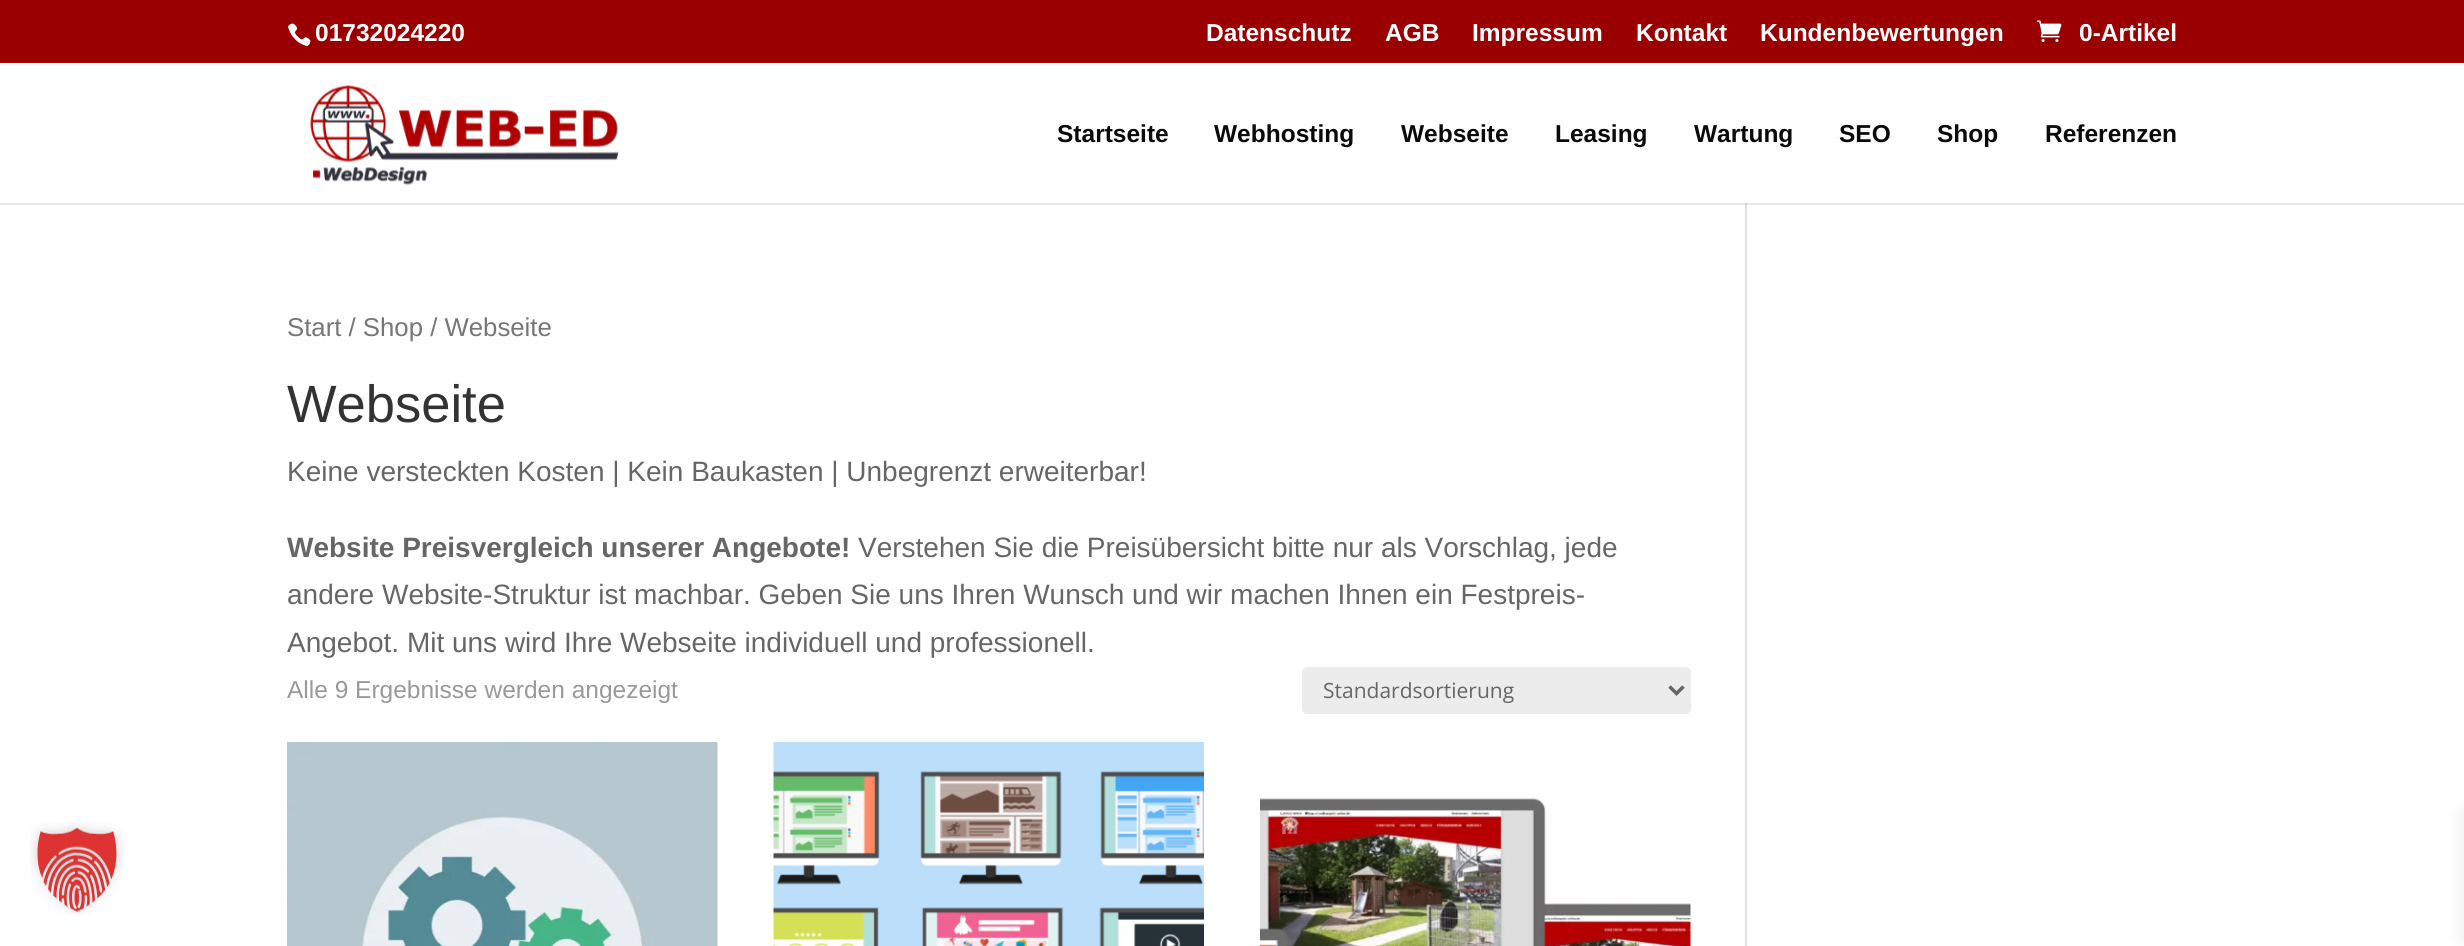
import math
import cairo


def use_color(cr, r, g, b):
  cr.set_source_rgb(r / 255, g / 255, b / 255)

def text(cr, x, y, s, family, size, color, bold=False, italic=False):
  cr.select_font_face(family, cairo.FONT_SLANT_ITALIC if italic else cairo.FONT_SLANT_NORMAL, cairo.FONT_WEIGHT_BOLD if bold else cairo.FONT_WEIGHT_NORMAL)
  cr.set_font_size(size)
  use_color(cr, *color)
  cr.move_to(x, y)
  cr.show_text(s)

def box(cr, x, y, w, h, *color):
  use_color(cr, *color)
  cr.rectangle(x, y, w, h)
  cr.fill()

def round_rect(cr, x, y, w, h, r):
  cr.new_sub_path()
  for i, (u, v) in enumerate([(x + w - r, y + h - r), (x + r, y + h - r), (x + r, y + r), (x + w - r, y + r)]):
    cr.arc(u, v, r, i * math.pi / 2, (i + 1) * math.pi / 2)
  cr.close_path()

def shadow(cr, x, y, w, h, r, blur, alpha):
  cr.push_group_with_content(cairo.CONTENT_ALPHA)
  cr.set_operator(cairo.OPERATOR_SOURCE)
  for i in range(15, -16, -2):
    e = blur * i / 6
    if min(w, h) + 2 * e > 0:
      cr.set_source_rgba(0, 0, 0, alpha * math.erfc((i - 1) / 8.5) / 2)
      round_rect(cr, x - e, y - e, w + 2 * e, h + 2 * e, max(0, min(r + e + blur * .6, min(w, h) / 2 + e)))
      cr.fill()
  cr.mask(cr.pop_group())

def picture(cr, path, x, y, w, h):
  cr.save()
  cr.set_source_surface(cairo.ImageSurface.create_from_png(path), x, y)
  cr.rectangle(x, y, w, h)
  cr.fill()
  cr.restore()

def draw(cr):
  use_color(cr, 255, 255, 255)
  cr.paint()
  box(cr, 0, 203, 2464, 2, 230, 230, 230)
  box(cr, 0, 0, 2464, 63, 154, 0, 0)
  picture(cr, "img_01.png", 288, 23, 23, 23)
  picture(cr, "img_02.png", 2037, 20, 25, 22)
  picture(cr, "img_03.png", 310, 85, 309, 100)
  use_color(cr, 236, 236, 236)
  round_rect(cr, 1302, 667, 389, 47, 5)
  cr.fill()
  cr.new_path()
  cr.move_to(1669.5, 686.5)
  cr.line_to(1676.5, 693.5)
  cr.line_to(1683.5, 686.5)
  use_color(cr, 102, 102, 102)
  cr.set_line_width(3.5)
  cr.stroke()
  picture(cr, "img_04.png", 287, 742, 431, 204)
  picture(cr, "img_05.png", 773, 742, 431, 204)
  picture(cr, "img_06.png", 1260, 798, 431, 148)
  box(cr, 1745, 203, 2, 743, 226, 226, 226)
  box(cr, 1745, 203, 2, 2, 203, 203, 203)
  picture(cr, "img_07.png", 30, 822, 94, 93)
  use_color(cr, 0, 0, 0)
  shadow(cr, 2464, 814, 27, 124, 0, 9, 0.1)
  text(cr, 315, 41, "01732024220", "Liberation Sans", 24.5, (255, 255, 255), bold=True)
  text(cr, 1206, 41, "Datenschutz", "Liberation Sans", 24.5, (255, 255, 255), bold=True)
  text(cr, 1385, 41, "AGB", "Liberation Sans", 24.5, (255, 255, 255), bold=True)
  text(cr, 1472, 41, "Impressum", "Liberation Sans", 24.5, (255, 255, 255), bold=True)
  text(cr, 1636, 41, "Kontakt", "Liberation Sans", 24.5, (255, 255, 255), bold=True)
  text(cr, 1760, 41, "Kundenbewertungen", "Liberation Sans", 24.5, (255, 255, 255), bold=True)
  text(cr, 2079, 41, "0-Artikel", "Liberation Sans", 24.5, (255, 255, 255), bold=True)
  text(cr, 1057, 142, "Startseite", "Liberation Sans", 24.5, (10, 10, 10), bold=True)
  text(cr, 1214, 142, "Webhosting", "Liberation Sans", 24.5, (10, 10, 10), bold=True)
  text(cr, 1401, 142, "Webseite", "Liberation Sans", 24.5, (10, 10, 10), bold=True)
  text(cr, 1555, 142, "Leasing", "Liberation Sans", 24.5, (10, 10, 10), bold=True)
  text(cr, 1694, 142, "Wartung", "Liberation Sans", 24.5, (10, 10, 10), bold=True)
  text(cr, 1839, 142, "SEO", "Liberation Sans", 24.5, (10, 10, 10), bold=True)
  text(cr, 1937, 142, "Shop", "Liberation Sans", 24.5, (10, 10, 10), bold=True)
  text(cr, 2045, 142, "Referenzen", "Liberation Sans", 24.5, (10, 10, 10), bold=True)
  text(cr, 287, 336, "Start / Shop / Webseite", "Liberation Sans", 25.75, (118, 118, 118))
  text(cr, 287, 422, "Webseite", "Liberation Sans", 52.5, (51, 51, 51))
  text(cr, 287, 481, "Keine versteckten Kosten | Kein Baukasten | Unbegrenzt erweiterbar!", "Liberation Sans", 28, (102, 102, 102))
  text(cr, 287, 557, "Website Preisvergleich unserer Angebote!", "Liberation Sans", 28, (102, 102, 102), bold=True)
  text(cr, 858, 557, "Verstehen Sie die Preisübersicht bitte nur als Vorschlag, jede", "Liberation Sans", 28, (102, 102, 102))
  text(cr, 287, 604, "andere Website-Struktur ist machbar. Geben Sie uns Ihren Wunsch und wir machen Ihnen ein Festpreis-", "Liberation Sans", 28, (102, 102, 102))
  text(cr, 287, 652, "Angebot. Mit uns wird Ihre Webseite individuell und professionell.", "Liberation Sans", 28, (102, 102, 102))
  text(cr, 287, 698, "Alle 9 Ergebnisse werden angezeigt", "Liberation Sans", 24.5, (153, 153, 153))
  text(cr, 1323, 698, "Standardsortierung", "Open Sans", 21, (102, 102, 102))


surface = cairo.ImageSurface(cairo.FORMAT_RGB24, 2464, 946)
cr = cairo.Context(surface)
options = cairo.FontOptions()
options.set_hint_metrics(cairo.HINT_METRICS_OFF)
options.set_hint_style(cairo.HINT_STYLE_NONE)
cr.set_font_options(options)
cr.set_miter_limit(4)
draw(cr)
surface.write_to_png("out.png")
